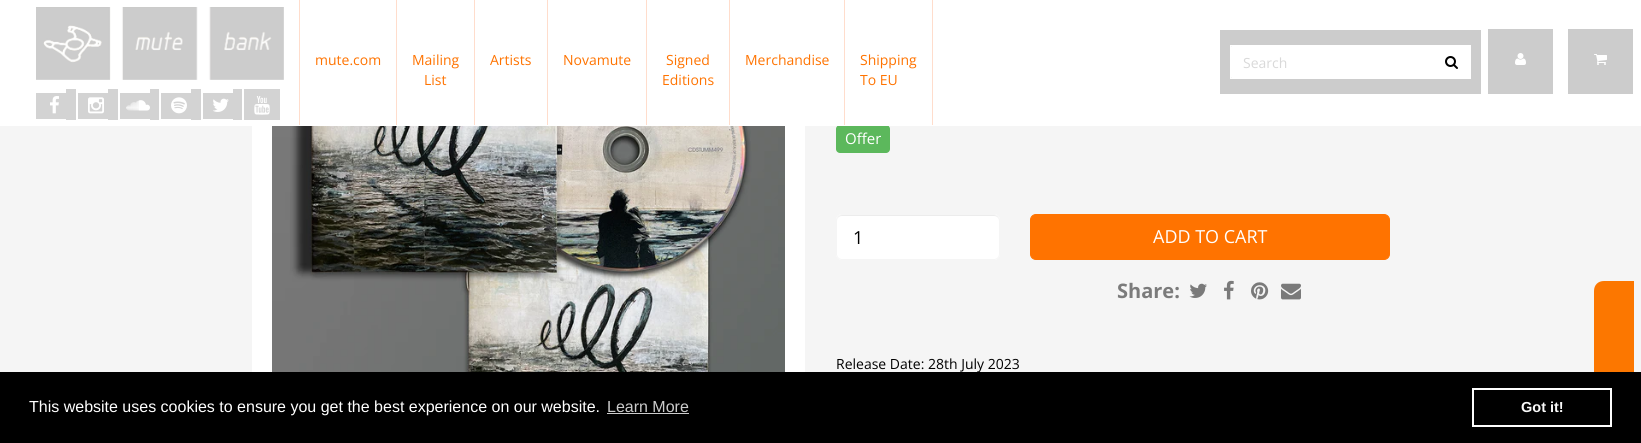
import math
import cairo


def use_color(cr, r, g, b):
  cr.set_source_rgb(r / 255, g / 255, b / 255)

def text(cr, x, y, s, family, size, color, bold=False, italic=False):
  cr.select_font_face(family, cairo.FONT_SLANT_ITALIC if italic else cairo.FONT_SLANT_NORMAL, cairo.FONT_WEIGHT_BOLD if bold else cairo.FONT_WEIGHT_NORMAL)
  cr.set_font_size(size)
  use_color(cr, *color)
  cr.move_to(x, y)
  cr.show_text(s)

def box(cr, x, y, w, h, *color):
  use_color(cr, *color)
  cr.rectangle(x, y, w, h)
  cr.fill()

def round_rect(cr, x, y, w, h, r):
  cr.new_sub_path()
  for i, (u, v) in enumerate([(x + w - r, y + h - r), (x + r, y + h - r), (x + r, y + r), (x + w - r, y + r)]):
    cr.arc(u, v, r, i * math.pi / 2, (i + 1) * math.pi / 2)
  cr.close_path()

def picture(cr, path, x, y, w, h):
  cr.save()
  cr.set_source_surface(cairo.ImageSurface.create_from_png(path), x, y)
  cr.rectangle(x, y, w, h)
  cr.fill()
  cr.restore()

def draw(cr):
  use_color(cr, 245, 245, 245)
  cr.paint()
  cr.rectangle(262, -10, 533, 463)
  use_color(cr, 255, 255, 255)
  cr.set_line_width(20)
  cr.stroke()
  use_color(cr, 92, 184, 92)
  round_rect(cr, 836, 125, 54, 28, 4)
  cr.fill()
  box(cr, 0, 0, 1641, 126, 255, 255, 255)
  picture(cr, "img_01.png", 36, 7, 248, 73)
  box(cr, 36, 93, 30, 26, 211, 211, 211)
  box(cr, 66, 89, 10, 31, 211, 211, 211)
  picture(cr, "img_02.png", 50, 96, 9, 18)
  box(cr, 78, 93, 30, 26, 211, 211, 211)
  box(cr, 108, 89, 10, 31, 211, 211, 211)
  picture(cr, "img_03.png", 88, 97, 16, 17)
  box(cr, 120, 93, 30, 26, 211, 211, 211)
  box(cr, 150, 89, 9, 31, 211, 211, 211)
  picture(cr, "img_04.png", 126, 100, 24, 11)
  box(cr, 161, 93, 30, 26, 211, 211, 211)
  box(cr, 191, 89, 10, 31, 211, 211, 211)
  picture(cr, "img_05.png", 171, 97, 16, 17)
  box(cr, 203, 93, 30, 26, 211, 211, 211)
  box(cr, 233, 89, 9, 31, 211, 211, 211)
  picture(cr, "img_06.png", 213, 98, 16, 14)
  box(cr, 244, 89, 36, 31, 211, 211, 211)
  picture(cr, "img_07.png", 254, 96, 16, 19)
  box(cr, 396, 0, 1, 125, 255, 221, 204)
  box(cr, 299, 0, 1, 125, 255, 221, 204)
  box(cr, 474, 0, 1, 125, 255, 221, 204)
  box(cr, 547, 0, 1, 125, 255, 221, 204)
  box(cr, 646, 0, 1, 125, 255, 221, 204)
  box(cr, 729, 0, 1, 125, 255, 221, 204)
  box(cr, 844, 0, 1, 125, 255, 221, 204)
  box(cr, 932, 0, 1, 125, 255, 221, 204)
  box(cr, 1220, 30, 261, 64, 204, 204, 204)
  use_color(cr, 255, 255, 255)
  cr.new_path()
  cr.move_to(1234, 45)
  cr.line_to(1433, 45)
  cr.line_to(1433, 79)
  cr.line_to(1234, 79)
  cr.curve_to(1232, 79, 1230, 77, 1230, 75)
  cr.line_to(1230, 49)
  cr.curve_to(1230, 47, 1232, 45, 1234, 45)
  cr.close_path()
  cr.fill()
  cr.rectangle(1230.5, 45.5, 202, 33)
  cr.set_line_width(1)
  cr.stroke()
  box(cr, 1433, 45, 38, 34, 255, 255, 255)
  picture(cr, "img_08.png", 1445, 56, 13, 13)
  box(cr, 1488, 29, 65, 65, 204, 204, 204)
  picture(cr, "img_09.png", 1515, 53, 11, 12)
  box(cr, 1568, 29, 65, 65, 204, 204, 204)
  picture(cr, "img_10.png", 1594, 54, 13, 11)
  picture(cr, "img_11.png", 272, 126, 513, 246)
  use_color(cr, 255, 255, 255)
  round_rect(cr, 836, 214, 164, 46, 6)
  cr.fill()
  use_color(cr, 236, 236, 236)
  cr.new_path()
  cr.move_to(842, 216)
  cr.line_to(994, 216)
  cr.curve_to(997, 216, 999, 218, 999, 221)
  cr.line_to(999, 220)
  cr.curve_to(999, 217, 997, 215, 994, 215)
  cr.line_to(842, 215)
  cr.curve_to(839, 215, 837, 217, 837, 220)
  cr.line_to(837, 221)
  cr.curve_to(837, 218, 839, 216, 842, 216)
  cr.close_path()
  cr.fill()
  round_rect(cr, 836.5, 214.5, 163, 45, 5.5)
  use_color(cr, 245, 245, 245)
  cr.stroke()
  use_color(cr, 255, 115, 0)
  round_rect(cr, 1030.5, 214.5, 359, 45, 5.5)
  cr.fill_preserve()
  cr.stroke()
  picture(cr, "img_12.png", 1189, 283, 18, 15)
  picture(cr, "img_13.png", 1224, 280, 10, 20)
  picture(cr, "img_14.png", 1251, 282, 18, 18)
  picture(cr, "img_15.png", 1281, 283, 20, 17)
  use_color(cr, 252, 119, 0)
  cr.new_path()
  cr.move_to(1594, 396)
  cr.line_to(1594, 291)
  cr.curve_to(1594, 285, 1598, 281, 1604, 281)
  cr.line_to(1634, 281)
  cr.line_to(1634, 406)
  cr.line_to(1604, 406)
  cr.curve_to(1598, 406, 1594, 401, 1594, 396)
  cr.close_path()
  cr.fill()
  box(cr, 0, 372, 1641, 71, 0, 0, 0)
  box(cr, 607, 413, 82, 1, 204, 204, 204)
  cr.rectangle(1473, 389, 138, 37)
  use_color(cr, 253, 253, 253)
  cr.set_line_width(2)
  cr.stroke()
  text(cr, 315, 65, "mute.com", "Open Sans", 14, (255, 115, 0))
  text(cr, 412, 65, "Mailing", "Open Sans", 14, (255, 115, 0))
  text(cr, 424, 85, "List", "Open Sans", 14, (255, 115, 0))
  text(cr, 490, 65, "Artists", "Open Sans", 14, (255, 115, 0))
  text(cr, 563, 65, "Novamute", "Open Sans", 14, (255, 115, 0))
  text(cr, 666, 65, "Signed", "Open Sans", 14, (255, 115, 0))
  text(cr, 662, 85, "Editions", "Open Sans", 14, (255, 115, 0))
  text(cr, 745, 65, "Merchandise", "Open Sans", 14, (255, 115, 0))
  text(cr, 860, 65, "Shipping", "Open Sans", 14, (255, 115, 0))
  text(cr, 860, 85, "To EU", "Open Sans", 14, (255, 115, 0))
  text(cr, 1243, 68, "Search", "Open Sans", 14, (217, 217, 217))
  text(cr, 845, 144, "Offer", "Open Sans", 15, (255, 255, 255))
  text(cr, 853, 244, "1", "Open Sans", 18, (0, 0, 0))
  text(cr, 1153, 243, "ADD TO CART", "Open Sans", 18, (255, 255, 255))
  text(cr, 1117, 298, "Share:", "Open Sans", 20, (123, 123, 123), bold=True)
  text(cr, 836, 369, "Release Date: 28th July 2023", "Open Sans", 14, (0, 0, 0))
  text(cr, 29, 412, "This website uses cookies to ensure you get the best experience on our website.", "Liberation Sans", 16, (255, 255, 255))
  text(cr, 607, 412, "Learn More", "Liberation Sans", 16, (204, 204, 204))
  text(cr, 1521, 412, "Got it!", "Liberation Sans", 14.5, (249, 249, 249), bold=True)


surface = cairo.ImageSurface(cairo.FORMAT_RGB24, 1641, 443)
cr = cairo.Context(surface)
options = cairo.FontOptions()
options.set_hint_metrics(cairo.HINT_METRICS_OFF)
options.set_hint_style(cairo.HINT_STYLE_NONE)
cr.set_font_options(options)
cr.set_miter_limit(4)
draw(cr)
surface.write_to_png("out.png")
